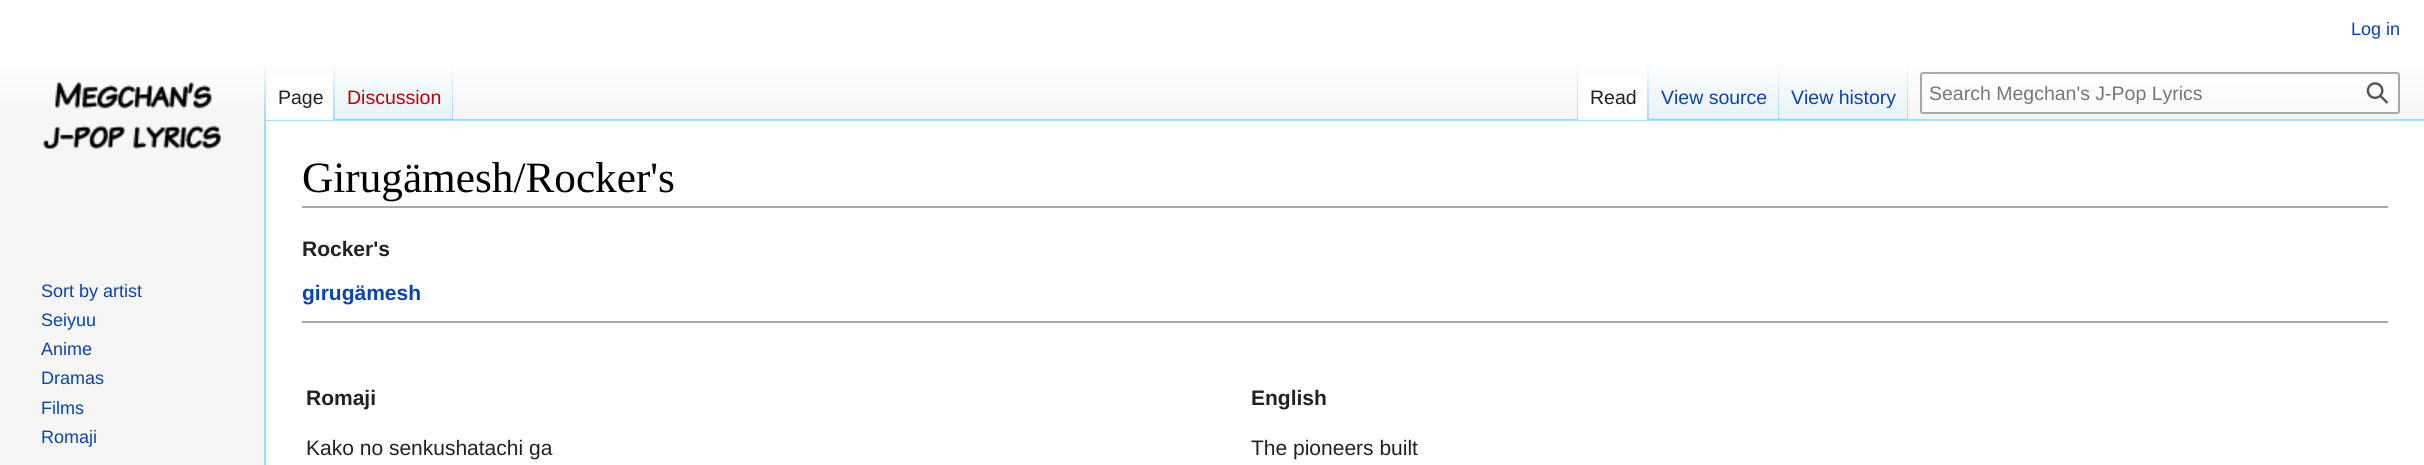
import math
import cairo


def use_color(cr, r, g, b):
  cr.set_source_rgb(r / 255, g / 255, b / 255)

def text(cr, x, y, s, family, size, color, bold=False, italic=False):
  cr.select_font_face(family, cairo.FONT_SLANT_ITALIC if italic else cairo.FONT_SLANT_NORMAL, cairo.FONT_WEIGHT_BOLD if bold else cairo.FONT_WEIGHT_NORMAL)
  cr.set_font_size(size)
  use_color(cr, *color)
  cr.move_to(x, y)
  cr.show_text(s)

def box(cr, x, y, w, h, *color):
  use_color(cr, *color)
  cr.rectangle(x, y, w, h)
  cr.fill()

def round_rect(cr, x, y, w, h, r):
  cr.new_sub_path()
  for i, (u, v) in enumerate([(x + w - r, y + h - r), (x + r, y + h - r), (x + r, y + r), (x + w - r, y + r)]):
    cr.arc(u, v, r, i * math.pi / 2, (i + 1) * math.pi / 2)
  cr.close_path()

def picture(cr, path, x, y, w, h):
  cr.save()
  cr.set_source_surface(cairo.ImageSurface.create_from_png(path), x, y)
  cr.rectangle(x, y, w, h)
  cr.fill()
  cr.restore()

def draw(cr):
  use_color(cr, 246, 246, 246)
  cr.paint()
  gradient = cairo.LinearGradient(1212, 0, 1212, 120)
  gradient.add_color_stop_rgba(0.5, 1, 1, 1, 1)
  gradient.add_color_stop_rgba(1, 0.965, 0.965, 0.965, 1)
  cr.set_source(gradient)
  cr.rectangle(0, 0, 2424, 103)
  cr.fill()
  box(cr, 264, 119, 2160, 2, 167, 215, 249)
  box(cr, 264, 119, 2, 346, 167, 215, 249)
  gradient = cairo.LinearGradient(265, 60, 265, 120)
  gradient.add_color_stop_rgba(0, 0.655, 0.843, 0.976, 0)
  gradient.add_color_stop_rgba(1, 0.655, 0.843, 0.976, 1)
  cr.set_source(gradient)
  cr.rectangle(264, 60, 2, 60)
  cr.fill()
  box(cr, 266, 77, 67, 43, 255, 255, 255)
  gradient = cairo.LinearGradient(334, 60, 334, 120)
  gradient.add_color_stop_rgba(0, 1, 1, 1, 1)
  gradient.add_color_stop_rgba(1, 0.655, 0.843, 0.976, 1)
  cr.set_source(gradient)
  cr.rectangle(333, 60, 2, 60)
  cr.fill()
  gradient = cairo.LinearGradient(394, 120, 394, 60)
  gradient.add_color_stop_rgba(0, 0.467, 0.757, 0.965, 1)
  gradient.add_color_stop_rgba(0.03, 0.91, 0.949, 0.973, 1)
  gradient.add_color_stop_rgba(1, 1, 1, 1, 1)
  cr.set_source(gradient)
  cr.rectangle(335, 69, 118, 51)
  cr.fill()
  gradient = cairo.LinearGradient(452, 60, 452, 120)
  gradient.add_color_stop_rgba(0, 0.655, 0.843, 0.976, 0)
  gradient.add_color_stop_rgba(1, 0.655, 0.843, 0.976, 1)
  cr.set_source(gradient)
  cr.rectangle(452, 60, 1, 60)
  cr.fill()
  gradient = cairo.LinearGradient(1577, 60, 1577, 120)
  gradient.add_color_stop_rgba(0, 0.655, 0.843, 0.976, 0)
  gradient.add_color_stop_rgba(1, 0.655, 0.843, 0.976, 1)
  cr.set_source(gradient)
  cr.rectangle(1577, 60, 1, 60)
  cr.fill()
  box(cr, 1578, 77, 69, 43, 255, 255, 255)
  gradient = cairo.LinearGradient(1648, 60, 1648, 120)
  gradient.add_color_stop_rgba(0, 1, 1, 1, 1)
  gradient.add_color_stop_rgba(1, 0.655, 0.843, 0.976, 1)
  cr.set_source(gradient)
  cr.rectangle(1647, 60, 2, 60)
  cr.fill()
  gradient = cairo.LinearGradient(1714, 120, 1714, 60)
  gradient.add_color_stop_rgba(0, 0.467, 0.757, 0.965, 1)
  gradient.add_color_stop_rgba(0.03, 0.91, 0.949, 0.973, 1)
  gradient.add_color_stop_rgba(1, 1, 1, 1, 1)
  cr.set_source(gradient)
  cr.rectangle(1649, 69, 130, 51)
  cr.fill()
  gradient = cairo.LinearGradient(1778, 60, 1778, 120)
  gradient.add_color_stop_rgba(0, 0.655, 0.843, 0.976, 0)
  gradient.add_color_stop_rgba(1, 0.655, 0.843, 0.976, 1)
  cr.set_source(gradient)
  cr.rectangle(1778, 60, 1, 60)
  cr.fill()
  gradient = cairo.LinearGradient(1844, 120, 1844, 60)
  gradient.add_color_stop_rgba(0, 0.467, 0.757, 0.965, 1)
  gradient.add_color_stop_rgba(0.03, 0.91, 0.949, 0.973, 1)
  gradient.add_color_stop_rgba(1, 1, 1, 1, 1)
  cr.set_source(gradient)
  cr.rectangle(1779, 69, 129, 51)
  cr.fill()
  gradient = cairo.LinearGradient(1907, 60, 1907, 120)
  gradient.add_color_stop_rgba(0, 0.655, 0.843, 0.976, 0)
  gradient.add_color_stop_rgba(1, 0.655, 0.843, 0.976, 1)
  cr.set_source(gradient)
  cr.rectangle(1907, 60, 1, 60)
  cr.fill()
  cr.set_source_rgba(1, 1, 1, 0.5)
  round_rect(cr, 1921, 73, 478, 40, 2)
  cr.fill_preserve()
  use_color(cr, 162, 169, 177)
  cr.stroke()
  picture(cr, "img_01.png", 2366, 82, 23, 22)
  picture(cr, "img_02.png", 43, 82, 178, 67)
  box(cr, 266, 121, 2158, 344, 255, 255, 255)
  box(cr, 302, 206, 2086, 2, 162, 169, 177)
  box(cr, 302, 321, 2086, 2, 162, 169, 177)
  text(cr, 2351, 35, "Log in", "Liberation Sans", 18, (6, 69, 173))
  text(cr, 278, 104, "Page", "Liberation Sans", 19.5, (32, 33, 34))
  text(cr, 347, 104, "Discussion", "Liberation Sans", 19.5, (186, 0, 0))
  text(cr, 1590, 104, "Read", "Liberation Sans", 19.5, (32, 33, 34))
  text(cr, 1661, 104, "View source", "Liberation Sans", 19.5, (6, 69, 173))
  text(cr, 1791, 104, "View history", "Liberation Sans", 19.5, (6, 69, 173))
  text(cr, 1929, 100, "Search Megchan's J-Pop Lyrics", "Liberation Sans", 19.5, (114, 119, 125))
  text(cr, 41, 297, "Sort by artist", "Liberation Sans", 18, (6, 69, 173))
  text(cr, 41, 326, "Seiyuu", "Liberation Sans", 18, (6, 69, 173))
  text(cr, 41, 355, "Anime", "Liberation Sans", 18, (6, 69, 173))
  text(cr, 41, 384, "Dramas", "Liberation Sans", 18, (6, 69, 173))
  text(cr, 41, 414, "Films", "Liberation Sans", 18, (6, 69, 173))
  text(cr, 41, 443, "Romaji", "Liberation Sans", 18, (6, 69, 173))
  text(cr, 302, 192, "Girugämesh/Rocker's", "Liberation Serif", 43.25, (0, 0, 0))
  text(cr, 302, 256, "Rocker's", "Liberation Sans", 21, (32, 33, 34), bold=True)
  text(cr, 302, 300, "girugämesh", "Liberation Sans", 21, (6, 69, 173), bold=True)
  text(cr, 306, 405, "Romaji", "Liberation Sans", 21, (32, 33, 34), bold=True)
  text(cr, 1251, 405, "English", "Liberation Sans", 21, (32, 33, 34), bold=True)
  text(cr, 306, 455, "Kako no senkushatachi ga", "Liberation Sans", 21, (32, 33, 34))
  text(cr, 1251, 455, "The pioneers built", "Liberation Sans", 21, (32, 33, 34))


surface = cairo.ImageSurface(cairo.FORMAT_RGB24, 2424, 465)
cr = cairo.Context(surface)
options = cairo.FontOptions()
options.set_hint_metrics(cairo.HINT_METRICS_OFF)
options.set_hint_style(cairo.HINT_STYLE_NONE)
cr.set_font_options(options)
cr.set_miter_limit(4)
draw(cr)
surface.write_to_png("out.png")
